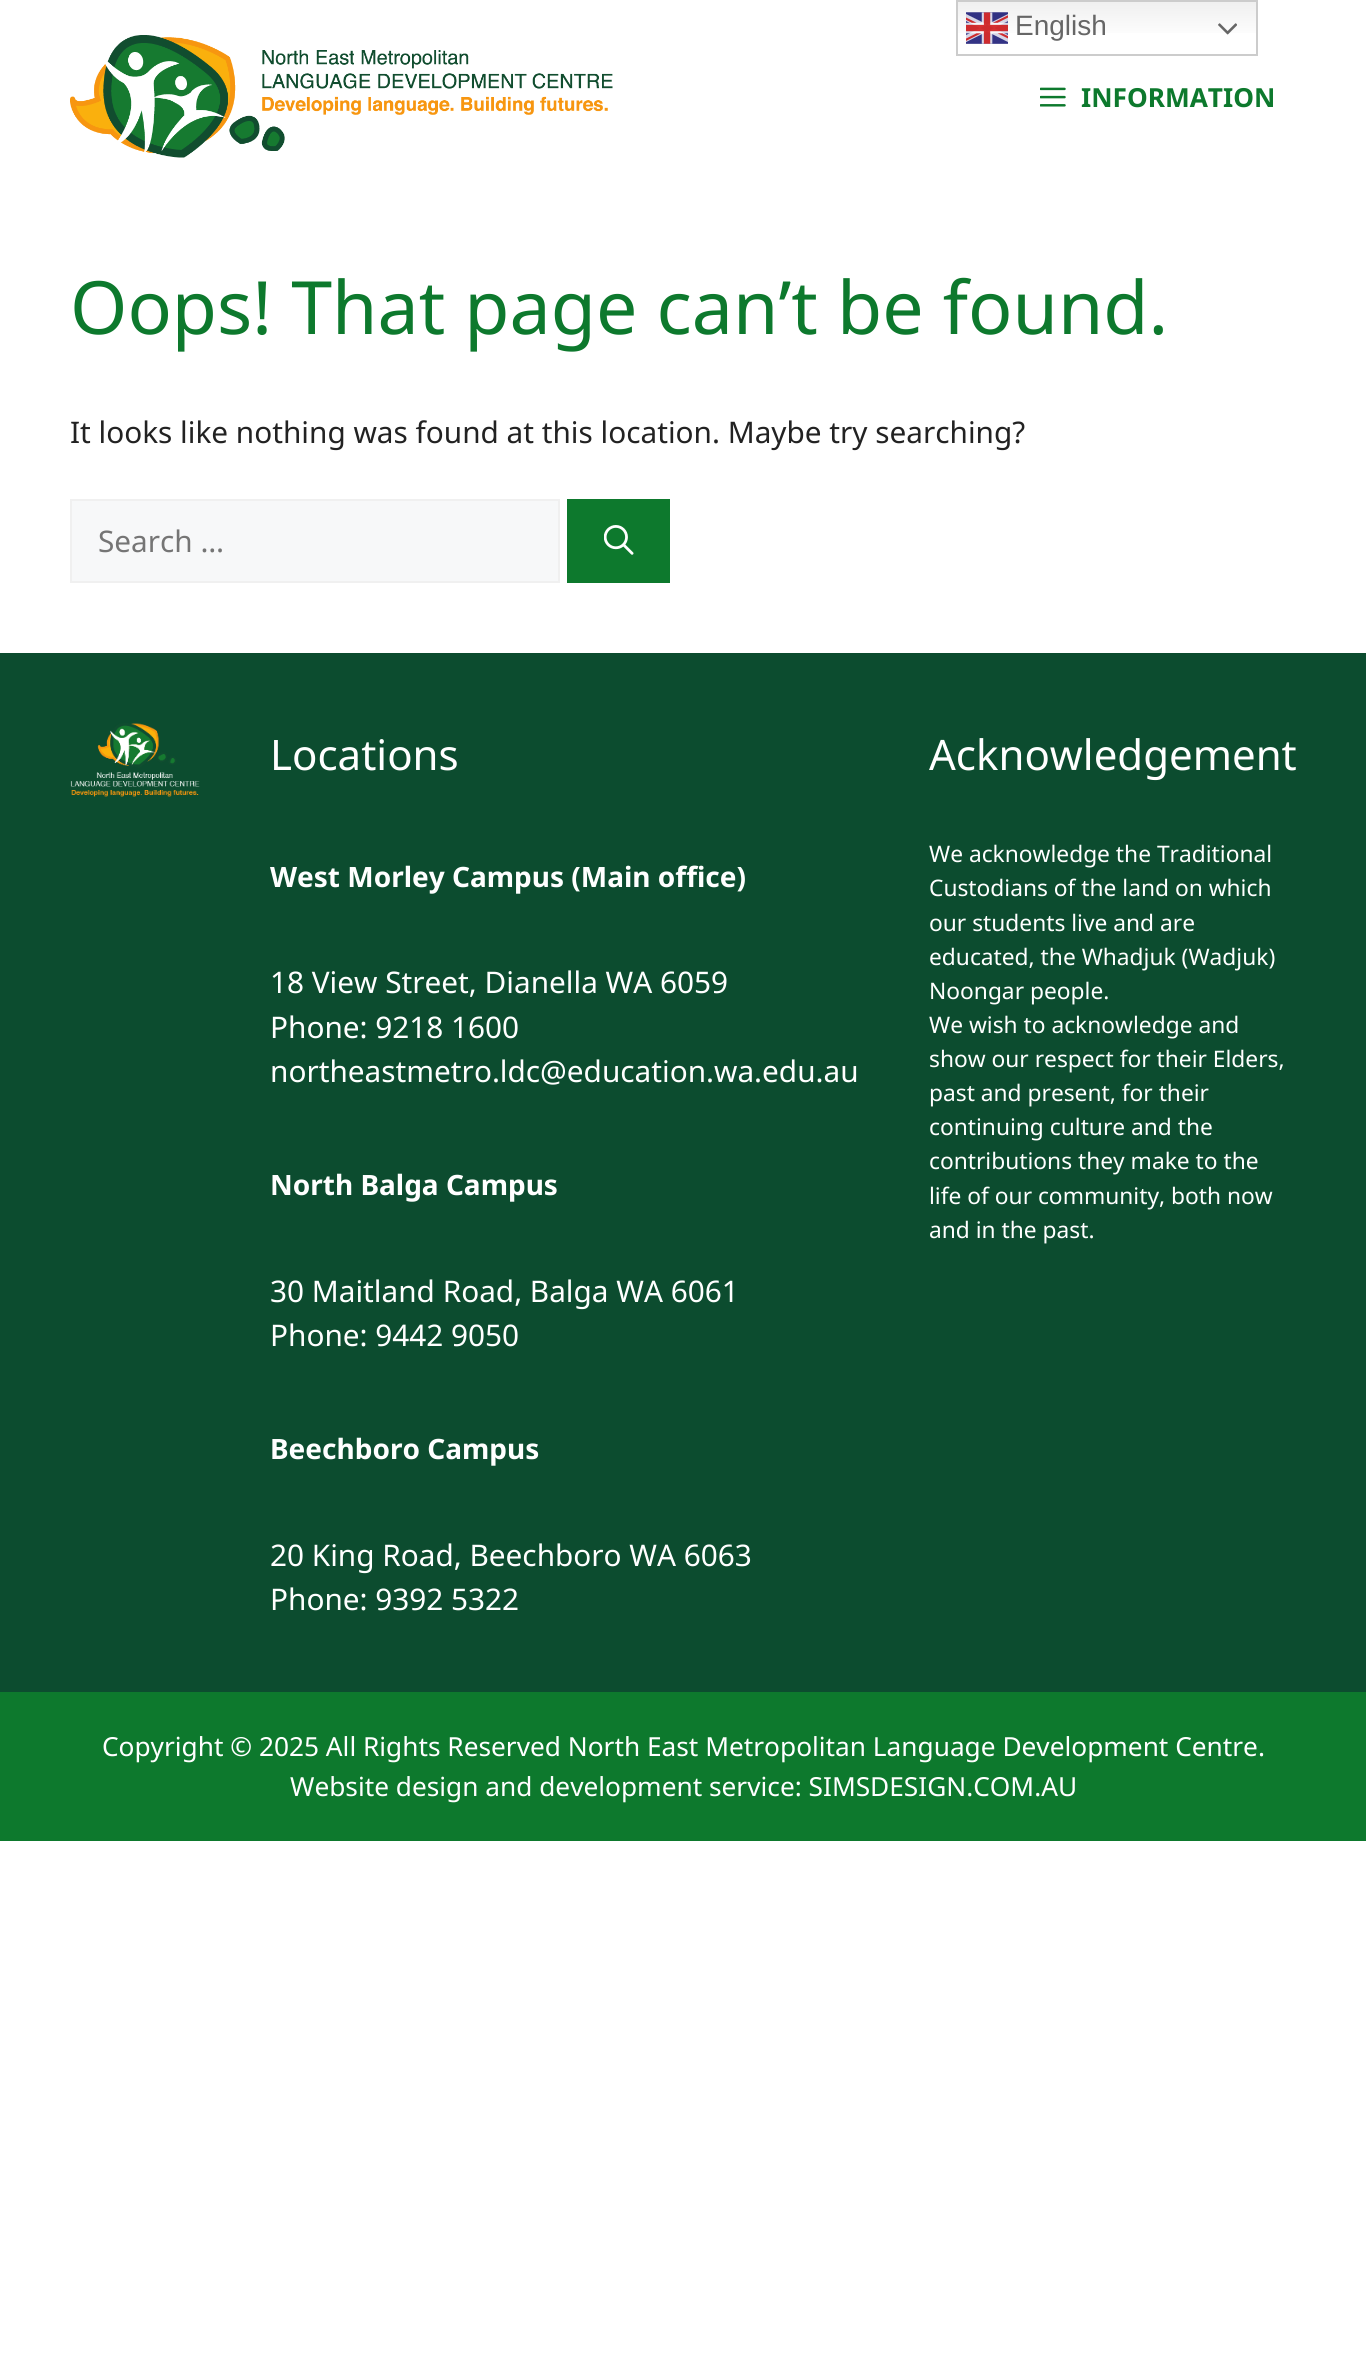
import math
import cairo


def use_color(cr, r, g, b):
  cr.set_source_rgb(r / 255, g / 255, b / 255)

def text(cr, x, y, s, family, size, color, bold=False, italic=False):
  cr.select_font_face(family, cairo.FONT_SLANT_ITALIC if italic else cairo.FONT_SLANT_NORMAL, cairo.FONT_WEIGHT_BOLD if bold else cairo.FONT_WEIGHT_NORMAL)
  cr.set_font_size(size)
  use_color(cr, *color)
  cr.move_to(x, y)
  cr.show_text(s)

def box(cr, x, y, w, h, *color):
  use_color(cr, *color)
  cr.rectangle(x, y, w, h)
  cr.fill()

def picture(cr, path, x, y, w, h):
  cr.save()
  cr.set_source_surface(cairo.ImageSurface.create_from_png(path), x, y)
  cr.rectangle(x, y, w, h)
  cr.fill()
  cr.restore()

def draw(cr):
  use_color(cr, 255, 255, 255)
  cr.paint()
  gradient = cairo.LinearGradient(1107, 0, 1107, 56)
  gradient.add_color_stop_rgba(0, 0.937, 0.937, 0.937, 1)
  gradient.add_color_stop_rgba(0.7, 1, 1, 1, 1)
  cr.set_source(gradient)
  cr.rectangle(958, 2, 298, 31)
  cr.fill()
  cr.rectangle(957, 1, 300, 54)
  use_color(cr, 204, 204, 204)
  cr.stroke()
  picture(cr, "img_01.png", 966, 12, 42, 32)
  picture(cr, "img_02.png", 1218, 23, 19, 12)
  picture(cr, "img_03.png", 70, 35, 543, 123)
  picture(cr, "img_04.png", 1040, 87, 26, 20)
  use_color(cr, 247, 248, 249)
  cr.rectangle(71, 500, 488, 82)
  cr.fill_preserve()
  use_color(cr, 240, 240, 240)
  cr.stroke()
  box(cr, 567, 499, 103, 84, 13, 121, 45)
  picture(cr, "img_05.png", 604, 525, 30, 30)
  box(cr, 0, 653, 1366, 1039, 12, 76, 47)
  picture(cr, "img_06.png", 70, 723, 130, 74)
  box(cr, 0, 1692, 1366, 149, 13, 121, 45)
  text(cr, 1015, 35, "English", "Liberation Sans", 28, (102, 102, 102))
  text(cr, 1081, 107, "INFORMATION", "Noto Sans", 26.25, (13, 121, 45), bold=True)
  text(cr, 70, 334, "Oops! That page can’t be found.", "Noto Sans", 73.5, (13, 121, 45))
  text(cr, 70, 443, "It looks like nothing was found at this location. Maybe try searching?", "Noto Sans", 29.75, (34, 34, 34))
  text(cr, 98, 552, "Search …", "Noto Sans", 29.75, (117, 117, 117))
  text(cr, 270, 770, "Locations", "Noto Sans", 42, (255, 255, 255))
  text(cr, 270, 887, "West Morley Campus (Main office)", "Noto Sans", 28, (255, 255, 255), bold=True)
  text(cr, 270, 993, "18 View Street, Dianella WA 6059", "Noto Sans", 29.75, (255, 255, 255))
  text(cr, 270, 1038, "Phone: 9218 1600", "Noto Sans", 29.75, (255, 255, 255))
  text(cr, 270, 1082, "northeastmetro.ldc@education.wa.edu.au", "Noto Sans", 29.75, (255, 255, 255))
  text(cr, 270, 1195, "North Balga Campus", "Noto Sans", 28, (255, 255, 255), bold=True)
  text(cr, 270, 1302, "30 Maitland Road, Balga WA 6061", "Noto Sans", 29.75, (255, 255, 255))
  text(cr, 270, 1346, "Phone: 9442 9050", "Noto Sans", 29.75, (255, 255, 255))
  text(cr, 270, 1459, "Beechboro Campus", "Noto Sans", 28, (255, 255, 255), bold=True)
  text(cr, 270, 1566, "20 King Road, Beechboro WA 6063", "Noto Sans", 29.75, (255, 255, 255))
  text(cr, 270, 1610, "Phone: 9392 5322", "Noto Sans", 29.75, (255, 255, 255))
  text(cr, 929, 770, "Acknowledgement", "Noto Sans", 42, (255, 255, 255))
  text(cr, 929, 862, "We acknowledge the Traditional", "Noto Sans", 22.75, (255, 255, 255))
  text(cr, 929, 896, "Custodians of the land on which", "Noto Sans", 22.75, (255, 255, 255))
  text(cr, 929, 931, "our students live and are", "Noto Sans", 22.75, (255, 255, 255))
  text(cr, 929, 965, "educated, the Whadjuk (Wadjuk)", "Noto Sans", 22.75, (255, 255, 255))
  text(cr, 929, 999, "Noongar people.", "Noto Sans", 22.75, (255, 255, 255))
  text(cr, 929, 1033, "We wish to acknowledge and", "Noto Sans", 22.75, (255, 255, 255))
  text(cr, 929, 1067, "show our respect for their Elders,", "Noto Sans", 22.75, (255, 255, 255))
  text(cr, 929, 1101, "past and present, for their", "Noto Sans", 22.75, (255, 255, 255))
  text(cr, 929, 1135, "continuing culture and the", "Noto Sans", 22.75, (255, 255, 255))
  text(cr, 929, 1169, "contributions they make to the", "Noto Sans", 22.75, (255, 255, 255))
  text(cr, 929, 1204, "life of our community, both now", "Noto Sans", 22.75, (255, 255, 255))
  text(cr, 929, 1238, "and in the past.", "Noto Sans", 22.75, (255, 255, 255))
  text(cr, 102, 1756, "Copyright © 2025 All Rights Reserved North East Metropolitan Language Development Centre.", "Noto Sans", 26.25, (255, 255, 255))
  text(cr, 290, 1796, "Website design and development service: SIMSDESIGN.COM.AU", "Noto Sans", 26.25, (255, 255, 255))


surface = cairo.ImageSurface(cairo.FORMAT_RGB24, 1366, 2376)
cr = cairo.Context(surface)
options = cairo.FontOptions()
options.set_hint_metrics(cairo.HINT_METRICS_OFF)
options.set_hint_style(cairo.HINT_STYLE_NONE)
cr.set_font_options(options)
cr.set_miter_limit(4)
draw(cr)
surface.write_to_png("out.png")
